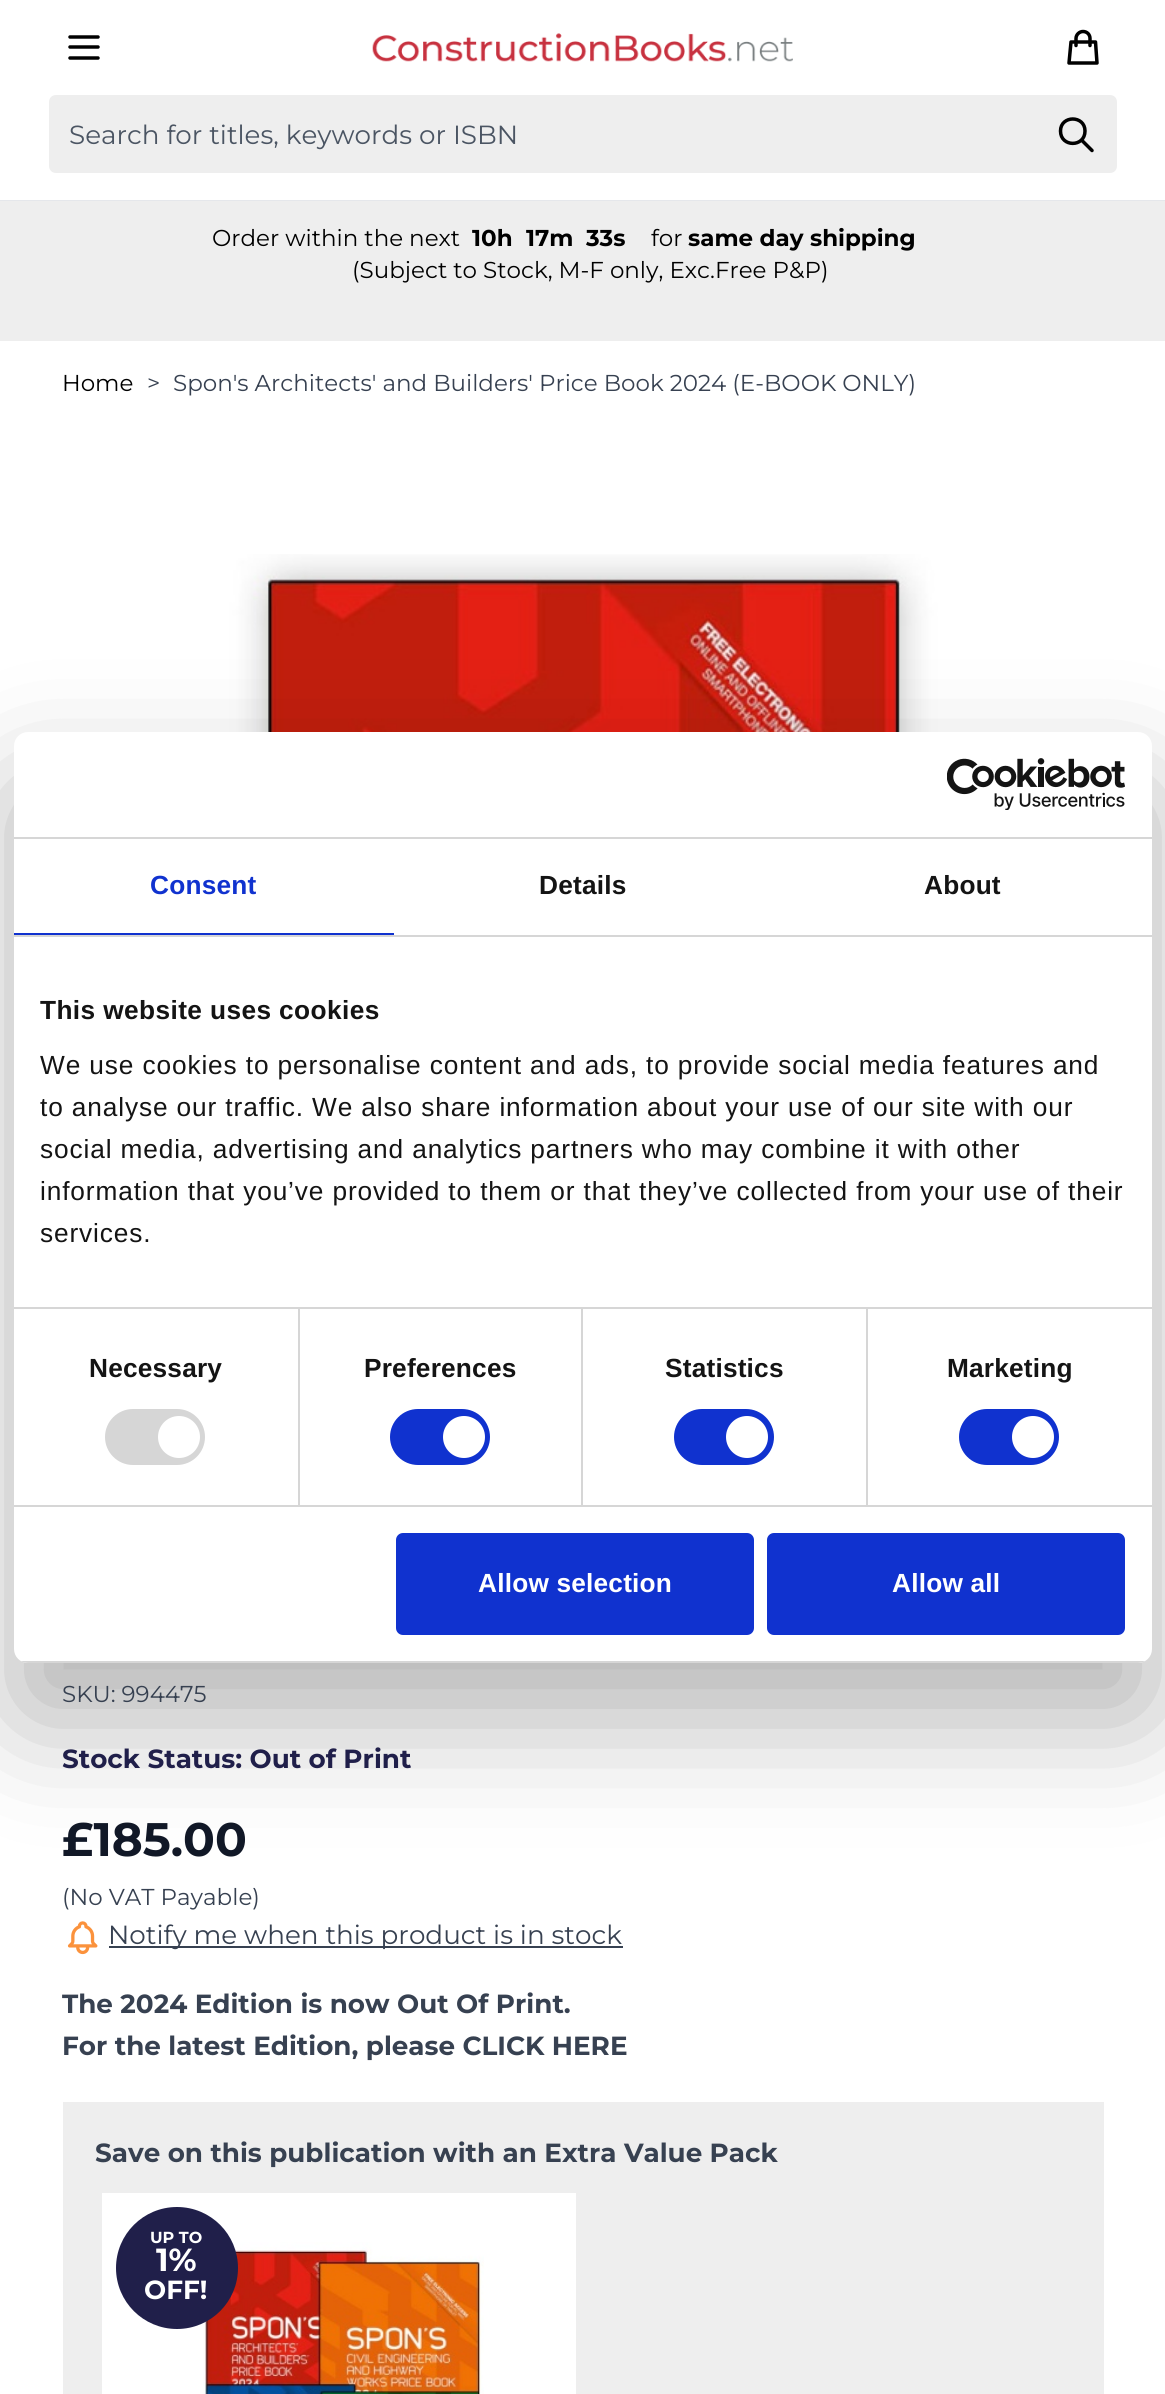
import math
import cairo


def use_color(cr, r, g, b):
  cr.set_source_rgb(r / 255, g / 255, b / 255)

def text(cr, x, y, s, family, size, color, bold=False, italic=False):
  cr.select_font_face(family, cairo.FONT_SLANT_ITALIC if italic else cairo.FONT_SLANT_NORMAL, cairo.FONT_WEIGHT_BOLD if bold else cairo.FONT_WEIGHT_NORMAL)
  cr.set_font_size(size)
  use_color(cr, *color)
  cr.move_to(x, y)
  cr.show_text(s)

def spaced_text(cr, x, y, s, letter, word):
  cr.move_to(x, y)
  for ch in s:
    cr.show_text(ch)
    cr.rel_move_to(letter + word * (ch == ' '), 0)

def box(cr, x, y, w, h, *color):
  use_color(cr, *color)
  cr.rectangle(x, y, w, h)
  cr.fill()

def round_rect(cr, x, y, w, h, r):
  cr.new_sub_path()
  for i, (u, v) in enumerate([(x + w - r, y + h - r), (x + r, y + h - r), (x + r, y + r), (x + w - r, y + r)]):
    cr.arc(u, v, r, i * math.pi / 2, (i + 1) * math.pi / 2)
  cr.close_path()

def shadow(cr, x, y, w, h, r, blur, alpha):
  cr.push_group_with_content(cairo.CONTENT_ALPHA)
  cr.set_operator(cairo.OPERATOR_SOURCE)
  for i in range(15, -16, -2):
    e = blur * i / 6
    if min(w, h) + 2 * e > 0:
      cr.set_source_rgba(0, 0, 0, alpha * math.erfc((i - 1) / 8.5) / 2)
      round_rect(cr, x - e, y - e, w + 2 * e, h + 2 * e, max(0, min(r + e + blur * .6, min(w, h) / 2 + e)))
      cr.fill()
  cr.mask(cr.pop_group())

def picture(cr, path, x, y, w, h):
  cr.save()
  cr.set_source_surface(cairo.ImageSurface.create_from_png(path), x, y)
  cr.rectangle(x, y, w, h)
  cr.fill()
  cr.restore()

def draw(cr):
  use_color(cr, 255, 255, 255)
  cr.paint()
  cr.new_path()
  cr.move_to(70, 37)
  cr.line_to(98, 37)
  cr.move_to(70, 47)
  cr.line_to(98, 47)
  cr.move_to(70, 58)
  cr.line_to(98, 58)
  use_color(cr, 0, 0, 0)
  cr.set_line_width(3.5)
  cr.set_line_cap(cairo.LINE_CAP_ROUND)
  cr.set_line_join(cairo.LINE_JOIN_ROUND)
  cr.stroke()
  picture(cr, "img_01.png", 372, 33, 421, 29)
  cr.new_path()
  cr.move_to(1090, 45.5)
  cr.line_to(1090, 38.5)
  cr.curve_to(1090, 34.5, 1087, 31.5, 1083, 31.5)
  cr.curve_to(1079.5, 31.5, 1076, 34.5, 1076, 38.5)
  cr.line_to(1076, 45.5)
  cr.move_to(1071, 42)
  cr.line_to(1095.5, 42)
  cr.line_to(1097, 63)
  cr.line_to(1069, 63)
  cr.close_path()
  cr.stroke()
  box(cr, 0, 200, 1165, 1, 229, 231, 235)
  use_color(cr, 238, 238, 238)
  cr.new_path()
  cr.move_to(56, 95)
  cr.line_to(1036, 95)
  cr.line_to(1036, 173)
  cr.line_to(56, 173)
  cr.curve_to(52, 173, 49, 170, 49, 166)
  cr.line_to(49, 102)
  cr.curve_to(49, 98, 52, 95, 56, 95)
  cr.close_path()
  cr.fill()
  cr.new_path()
  cr.move_to(1036, 95)
  cr.line_to(1110, 95)
  cr.curve_to(1114, 95, 1117, 98, 1117, 102)
  cr.line_to(1117, 166)
  cr.curve_to(1117, 170, 1114, 173, 1110, 173)
  cr.line_to(1036, 173)
  cr.close_path()
  cr.fill()
  cr.new_path()
  cr.move_to(1092, 150.5)
  cr.line_to(1081.5, 140)
  cr.move_to(1085, 131)
  cr.curve_to(1085, 147.5, 1060.5, 147.5, 1060.5, 131)
  cr.curve_to(1060.5, 115, 1085, 115, 1085, 131)
  cr.close_path()
  use_color(cr, 0, 0, 0)
  cr.stroke()
  box(cr, 0, 201, 1165, 140, 238, 238, 238)
  picture(cr, "img_02.png", 201, 554, 760, 178)
  picture(cr, "img_03.png", 67, 1921, 31, 34)
  box(cr, 109, 1946, 514, 2, 55, 65, 81)
  box(cr, 63, 2102, 1041, 292, 238, 238, 238)
  box(cr, 102, 2193, 474, 201, 255, 255, 255)
  picture(cr, "img_04.png", 203, 2242, 281, 152)
  use_color(cr, 32, 31, 74)
  cr.arc(177, 2268, 61, 0, 2 * math.pi)
  cr.fill()
  use_color(cr, 0, 0, 0)
  shadow(cr, 14, 788, 1138, 931, 14, 59.5, 0.3)
  use_color(cr, 255, 255, 255)
  round_rect(cr, 14, 732, 1138, 931, 14)
  cr.fill()
  box(cr, 14, 837, 1138, 2, 214, 214, 214)
  picture(cr, "img_05.png", 947, 758, 178, 52)
  box(cr, 14, 935, 1138, 2, 214, 214, 214)
  box(cr, 14, 933, 380, 2, 16, 50, 207)
  box(cr, 14, 1307, 1138, 2, 214, 214, 214)
  box(cr, 14, 1505, 1138, 2, 214, 214, 214)
  box(cr, 298, 1309, 2, 196, 214, 214, 214)
  round_rect(cr, 105, 1409, 100, 56, 28)
  cr.fill()
  use_color(cr, 255, 255, 255)
  cr.arc(179, 1437, 21, 0, 2 * math.pi)
  cr.fill()
  box(cr, 581, 1309, 2, 196, 214, 214, 214)
  use_color(cr, 16, 50, 207)
  round_rect(cr, 390, 1409, 100, 56, 28)
  cr.fill()
  use_color(cr, 255, 255, 255)
  cr.arc(464, 1437, 21, 0, 2 * math.pi)
  cr.fill()
  box(cr, 866, 1309, 2, 196, 214, 214, 214)
  use_color(cr, 16, 50, 207)
  round_rect(cr, 674, 1409, 100, 56, 28)
  cr.fill()
  use_color(cr, 255, 255, 255)
  cr.arc(747, 1437, 21, 0, 2 * math.pi)
  cr.fill()
  use_color(cr, 16, 50, 207)
  round_rect(cr, 959, 1409, 100, 56, 28)
  cr.fill()
  use_color(cr, 255, 255, 255)
  cr.arc(1033, 1437, 21, 0, 2 * math.pi)
  cr.fill()
  cr.save()
  round_rect(cr, 14, 732, 1138, 931, 14)
  cr.clip()
  box(cr, 14, 1661, 1138, 2, 214, 214, 214)
  cr.restore()
  use_color(cr, 16, 50, 207)
  round_rect(cr, 398, 1535, 354, 98, 5)
  cr.fill_preserve()
  cr.set_line_width(4)
  cr.set_line_cap(cairo.LINE_CAP_BUTT)
  cr.set_line_join(cairo.LINE_JOIN_MITER)
  cr.stroke()
  round_rect(cr, 769, 1535, 354, 98, 5)
  cr.fill_preserve()
  cr.stroke()
  text(cr, 69, 144, "Search for titles, keywords or ISBN", "Montserrat Thin", 26.25, (75, 85, 99))
  text(cr, 212, 246, "Order within the next", "Montserrat Thin", 23, (0, 0, 0))
  text(cr, 472, 246, "10h", "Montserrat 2 Thin", 23, (0, 0, 0))
  text(cr, 526, 246, "17m", "Montserrat 2 Thin", 23, (0, 0, 0))
  text(cr, 586, 246, "33s", "Montserrat 2 Thin", 23, (0, 0, 0))
  text(cr, 651, 246, "for", "Montserrat Thin", 23, (0, 0, 0))
  text(cr, 688, 246, "same day shipping", "Montserrat 2 Thin", 23, (0, 0, 0))
  text(cr, 352, 278, "(Subject to Stock, M-F only, Exc.Free P&P)", "Montserrat Thin", 23, (0, 0, 0))
  text(cr, 62, 391, "Home", "Montserrat Thin", 23, (0, 0, 0))
  text(cr, 147, 391, ">", "Montserrat Thin", 23, (55, 65, 81))
  text(cr, 173, 391, "Spon's Architects' and Builders' Price Book 2024 (E-BOOK ONLY)", "Montserrat Thin", 23, (55, 65, 81))
  text(cr, 62, 1702, "SKU: 994475", "Montserrat Thin", 23, (55, 65, 81))
  text(cr, 62, 1768, "Stock Status: Out of Print", "Montserrat 2 Thin", 26.25, (32, 31, 74))
  text(cr, 62, 1856, "£185.00", "Montserrat 2 Thin", 47, (17, 24, 39))
  text(cr, 62, 1905, "(No VAT Payable)", "Montserrat Thin", 23, (55, 65, 81))
  text(cr, 108, 1944, "Notify me when this product is in stock", "Montserrat Thin", 26.25, (55, 65, 81))
  text(cr, 62, 2013, "The 2024 Edition is now Out Of Print.", "Montserrat 2 Thin", 26.25, (55, 65, 81))
  text(cr, 62, 2055, "For the latest Edition, please CLICK HERE", "Montserrat 2 Thin", 26.25, (55, 65, 81))
  text(cr, 95, 2162, "Save on this publication with an Extra Value Pack", "Montserrat 2 Thin", 26.25, (55, 65, 81))
  text(cr, 150, 2243, "UP TO", "Montserrat 2 Thin", 16, (255, 255, 255))
  text(cr, 156, 2271, "1%", "Montserrat 2 Thin", 32, (255, 255, 255))
  text(cr, 144, 2299, "OFF!", "Montserrat 2 Thin", 26.25, (255, 255, 255))
  cr.select_font_face("Liberation Sans", cairo.FONT_SLANT_NORMAL, cairo.FONT_WEIGHT_BOLD)
  use_color(cr, 16, 50, 207)
  spaced_text(cr, 150, 894, "Consent", 0.2, 0)
  use_color(cr, 20, 20, 20)
  spaced_text(cr, 539, 894, "Details", 0.2, 0)
  spaced_text(cr, 924, 894, "About", 0.2, 0)
  spaced_text(cr, 40, 1019, "This website uses cookies", 0.4, 0)
  cr.select_font_face("Liberation Sans")
  spaced_text(cr, 40, 1074, "We use cookies to personalise content and ads, to provide social media features and", 0.88, 0)
  spaced_text(cr, 40, 1116, "to analyse our traffic. We also share information about your use of our site with our", 0.88, 0)
  spaced_text(cr, 40, 1158, "social media, advertising and analytics partners who may combine it with other", 0.88, 0)
  spaced_text(cr, 40, 1200, "information that you’ve provided to them or that they’ve collected from your use of their", 0.88, 0)
  spaced_text(cr, 40, 1242, "services.", 0.88, 0)
  cr.select_font_face("Liberation Sans", cairo.FONT_SLANT_NORMAL, cairo.FONT_WEIGHT_BOLD)
  spaced_text(cr, 89, 1377, "Necessary", 0.2, 0)
  spaced_text(cr, 364, 1377, "Preferences", 0.2, 0)
  spaced_text(cr, 665, 1377, "Statistics", 0.2, 0)
  spaced_text(cr, 947, 1377, "Marketing", 0.2, 0)
  use_color(cr, 255, 255, 255)
  spaced_text(cr, 478, 1592, "Allow selection", 0.2, 0)
  spaced_text(cr, 892, 1592, "Allow all", 0.2, 0)


surface = cairo.ImageSurface(cairo.FORMAT_RGB24, 1165, 2394)
cr = cairo.Context(surface)
options = cairo.FontOptions()
options.set_hint_metrics(cairo.HINT_METRICS_OFF)
options.set_hint_style(cairo.HINT_STYLE_NONE)
cr.set_font_options(options)
cr.set_miter_limit(4)
draw(cr)
surface.write_to_png("out.png")
